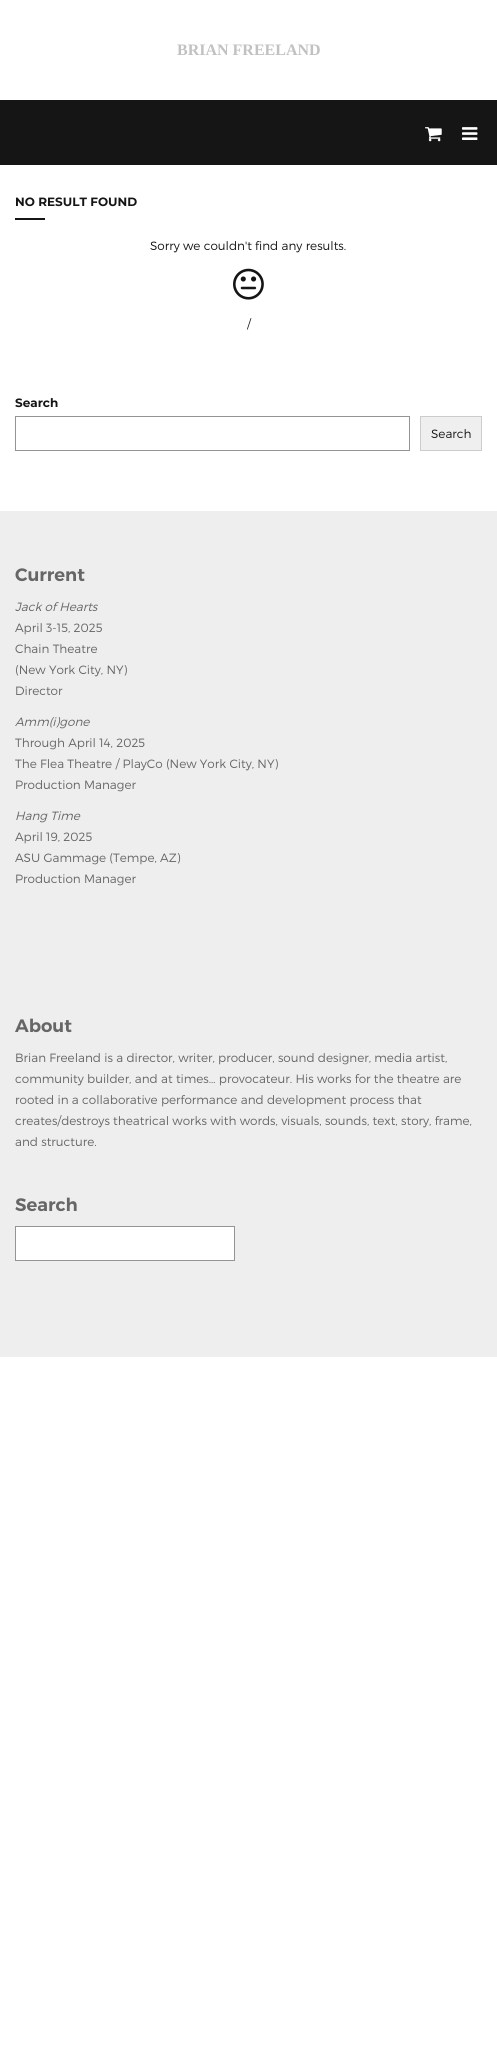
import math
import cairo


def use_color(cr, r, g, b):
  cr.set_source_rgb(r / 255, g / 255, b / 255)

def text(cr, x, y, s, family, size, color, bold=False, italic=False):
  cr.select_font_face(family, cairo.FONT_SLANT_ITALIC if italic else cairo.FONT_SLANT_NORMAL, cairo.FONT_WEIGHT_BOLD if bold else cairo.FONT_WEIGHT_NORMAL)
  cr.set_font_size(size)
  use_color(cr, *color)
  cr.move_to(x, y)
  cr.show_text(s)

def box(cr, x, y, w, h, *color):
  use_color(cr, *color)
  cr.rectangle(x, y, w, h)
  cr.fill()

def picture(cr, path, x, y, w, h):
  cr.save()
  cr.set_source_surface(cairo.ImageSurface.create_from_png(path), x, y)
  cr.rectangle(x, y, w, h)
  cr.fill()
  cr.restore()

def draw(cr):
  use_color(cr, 255, 255, 255)
  cr.paint()
  box(cr, 0, 100, 497, 65, 21, 21, 21)
  picture(cr, "img_01.png", 425, 127, 17, 15)
  picture(cr, "img_02.png", 462, 127, 16, 13)
  box(cr, 15, 218, 30, 2, 21, 21, 21)
  picture(cr, "img_03.png", 233, 268, 31, 32)
  cr.rectangle(15.5, 416.5, 394, 34)
  use_color(cr, 148, 148, 148)
  cr.set_line_width(1)
  cr.stroke()
  use_color(cr, 239, 239, 239)
  cr.rectangle(420.5, 416.5, 61, 34)
  cr.fill_preserve()
  use_color(cr, 204, 204, 204)
  cr.stroke()
  box(cr, 0, 511, 497, 846, 238, 238, 238)
  use_color(cr, 255, 255, 255)
  cr.rectangle(15.5, 1226.5, 219, 34)
  cr.fill_preserve()
  use_color(cr, 148, 148, 148)
  cr.stroke()
  text(cr, 177, 55, "BRIAN FREELAND", "Liberation Serif", 16, (193, 193, 193), bold=True)
  text(cr, 15, 206, "NO RESULT FOUND", "Montserrat", 12, (21, 21, 21), bold=True)
  text(cr, 150, 250, "Sorry we couldn't find any results.", "Montserrat Light", 12, (21, 21, 21))
  text(cr, 247, 328, "/", "Montserrat Light", 12, (21, 21, 21))
  text(cr, 15, 407, "Search", "Montserrat", 12, (21, 21, 21), bold=True)
  text(cr, 431, 438, "Search", "Montserrat Light", 12, (21, 21, 21))
  text(cr, 15, 581, "Current", "Montserrat SemiBold", 18, (102, 102, 102))
  text(cr, 15, 611, "Jack of Hearts", "Montserrat Light", 12, (102, 102, 102), italic=True)
  text(cr, 15, 632, "April 3-15, 2025", "Montserrat Light", 12, (102, 102, 102))
  text(cr, 15, 653, "Chain Theatre", "Montserrat Light", 12, (102, 102, 102))
  text(cr, 15, 674, "(New York City, NY)", "Montserrat Light", 12, (102, 102, 102))
  text(cr, 15, 695, "Director", "Montserrat Light", 12, (102, 102, 102))
  text(cr, 15, 726, "Amm(i)gone", "Montserrat Light", 12, (102, 102, 102), italic=True)
  text(cr, 15, 747, "Through April 14, 2025", "Montserrat Light", 12, (102, 102, 102))
  text(cr, 15, 768, "The Flea Theatre / PlayCo (New York City, NY)", "Montserrat Light", 12, (102, 102, 102))
  text(cr, 15, 789, "Production Manager", "Montserrat Light", 12, (102, 102, 102))
  text(cr, 15, 820, "Hang Time", "Montserrat Light", 12, (102, 102, 102), italic=True)
  text(cr, 15, 841, "April 19, 2025", "Montserrat Light", 12, (102, 102, 102))
  text(cr, 15, 862, "ASU Gammage (Tempe, AZ)", "Montserrat Light", 12, (102, 102, 102))
  text(cr, 15, 883, "Production Manager", "Montserrat Light", 12, (102, 102, 102))
  text(cr, 15, 1032, "About", "Montserrat SemiBold", 18, (102, 102, 102))
  text(cr, 15, 1062, "Brian Freeland is a director, writer, producer, sound designer, media artist,", "Montserrat Light", 12, (102, 102, 102))
  text(cr, 15, 1083, "community builder, and at times… provocateur. His works for the theatre are", "Montserrat Light", 12, (102, 102, 102))
  text(cr, 15, 1104, "rooted in a collaborative performance and development process that", "Montserrat Light", 12, (102, 102, 102))
  text(cr, 15, 1125, "creates/destroys theatrical works with words, visuals, sounds, text, story, frame,", "Montserrat Light", 12, (102, 102, 102))
  text(cr, 15, 1146, "and structure.", "Montserrat Light", 12, (102, 102, 102))
  text(cr, 15, 1211, "Search", "Montserrat SemiBold", 18, (102, 102, 102))


surface = cairo.ImageSurface(cairo.FORMAT_RGB24, 497, 2065)
cr = cairo.Context(surface)
options = cairo.FontOptions()
options.set_hint_metrics(cairo.HINT_METRICS_OFF)
options.set_hint_style(cairo.HINT_STYLE_NONE)
cr.set_font_options(options)
cr.set_miter_limit(4)
draw(cr)
surface.write_to_png("out.png")
